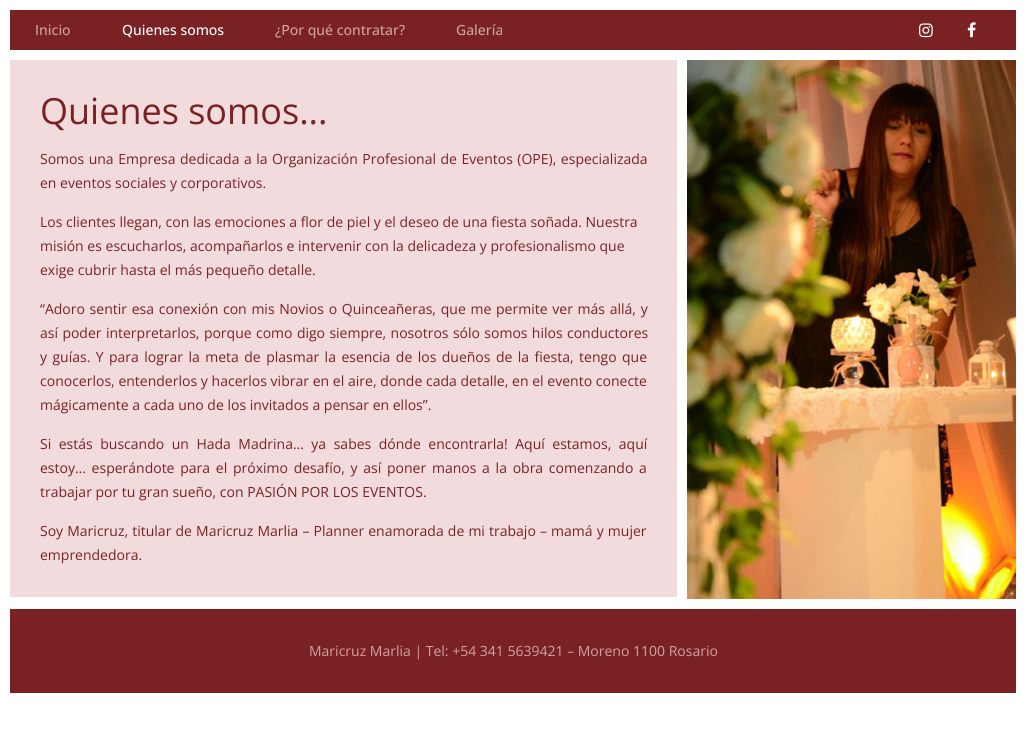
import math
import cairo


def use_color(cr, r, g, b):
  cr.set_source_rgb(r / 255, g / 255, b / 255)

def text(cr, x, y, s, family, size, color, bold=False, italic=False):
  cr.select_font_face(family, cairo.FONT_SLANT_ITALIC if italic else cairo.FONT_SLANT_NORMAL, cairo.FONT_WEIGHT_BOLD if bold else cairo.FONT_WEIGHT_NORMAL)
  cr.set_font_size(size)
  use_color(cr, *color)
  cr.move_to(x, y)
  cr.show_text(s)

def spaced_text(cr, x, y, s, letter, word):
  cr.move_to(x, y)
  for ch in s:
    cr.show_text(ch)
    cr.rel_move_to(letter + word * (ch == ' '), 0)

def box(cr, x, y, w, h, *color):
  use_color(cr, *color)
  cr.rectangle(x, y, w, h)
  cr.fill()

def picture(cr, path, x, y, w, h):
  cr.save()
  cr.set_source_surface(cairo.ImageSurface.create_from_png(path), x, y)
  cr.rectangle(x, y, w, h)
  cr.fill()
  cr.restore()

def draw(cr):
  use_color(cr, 255, 255, 255)
  cr.paint()
  box(cr, 10, 10, 1006, 40, 122, 34, 35)
  picture(cr, "img_01.png", 919, 23, 14, 15)
  picture(cr, "img_02.png", 967, 22, 9, 16)
  box(cr, 10, 60, 667, 537, 241, 219, 221)
  picture(cr, "img_03.png", 687, 60, 329, 539)
  box(cr, 10, 609, 1006, 84, 122, 34, 35)
  text(cr, 35, 35, "Inicio", "Open Sans Medium", 14, (207, 161, 161))
  text(cr, 122, 35, "Quienes somos", "Open Sans Medium", 14, (255, 255, 255))
  text(cr, 275, 35, "¿Por qué contratar?", "Open Sans Medium", 14, (207, 161, 161))
  text(cr, 456, 35, "Galería", "Open Sans Medium", 14, (207, 161, 161))
  text(cr, 40, 124, "Quienes somos...", "Open Sans", 36, (122, 34, 35))
  cr.set_font_size(14)
  spaced_text(cr, 40, 164, "Somos una Empresa dedicada a la Organización Profesional de Eventos (OPE), especializada", 0, 0.9)
  text(cr, 40, 188, "en eventos sociales y corporativos.", "Open Sans", 14, (122, 34, 35))
  text(cr, 40, 227, "Los clientes llegan, con las emociones a flor de piel y el deseo de una fiesta soñada. Nuestra", "Open Sans", 14, (122, 34, 35))
  text(cr, 40, 251, "misión es escucharlos, acompañarlos e intervenir con la delicadeza y profesionalismo que", "Open Sans", 14, (122, 34, 35))
  text(cr, 40, 275, "exige cubrir hasta el más pequeño detalle.", "Open Sans", 14, (122, 34, 35))
  spaced_text(cr, 40, 314, "“Adoro sentir esa conexión con mis Novios o Quinceañeras, que me permite ver más allá, y", 0, 1.1)
  spaced_text(cr, 40, 338, "así poder interpretarlos, porque como digo siempre, nosotros sólo somos hilos conductores", 0, 0.75)
  spaced_text(cr, 40, 362, "y guías. Y para lograr la meta de plasmar la esencia de los dueños de la fiesta, tengo que", 0, 1.8)
  spaced_text(cr, 40, 386, "conocerlos, entenderlos y hacerlos vibrar en el aire, donde cada detalle, en el evento conecte", 0, 0.1)
  text(cr, 40, 410, "mágicamente a cada uno de los invitados a pensar en ellos”.", "Open Sans", 14, (122, 34, 35))
  spaced_text(cr, 40, 449, "Si estás buscando un Hada Madrina… ya sabes dónde encontrarla! Aquí estamos, aquí", 0, 3.9)
  spaced_text(cr, 40, 473, "estoy… esperándote para el próximo desafío, y así poner manos a la obra comenzando a", 0, 2.1)
  text(cr, 40, 497, "trabajar por tu gran sueño, con PASIÓN POR LOS EVENTOS.", "Open Sans", 14, (122, 34, 35))
  spaced_text(cr, 40, 536, "Soy Maricruz, titular de Maricruz Marlia – Planner enamorada de mi trabajo – mamá y mujer", 0, 0.5)
  text(cr, 40, 560, "emprendedora.", "Open Sans", 14, (122, 34, 35))
  text(cr, 309, 656, "Maricruz Marlia | Tel: +54 341 5639421 – Moreno 1100 Rosario", "Open Sans", 14, (207, 161, 161))


surface = cairo.ImageSurface(cairo.FORMAT_RGB24, 1026, 742)
cr = cairo.Context(surface)
options = cairo.FontOptions()
options.set_hint_metrics(cairo.HINT_METRICS_OFF)
options.set_hint_style(cairo.HINT_STYLE_NONE)
cr.set_font_options(options)
cr.set_miter_limit(4)
draw(cr)
surface.write_to_png("out.png")
